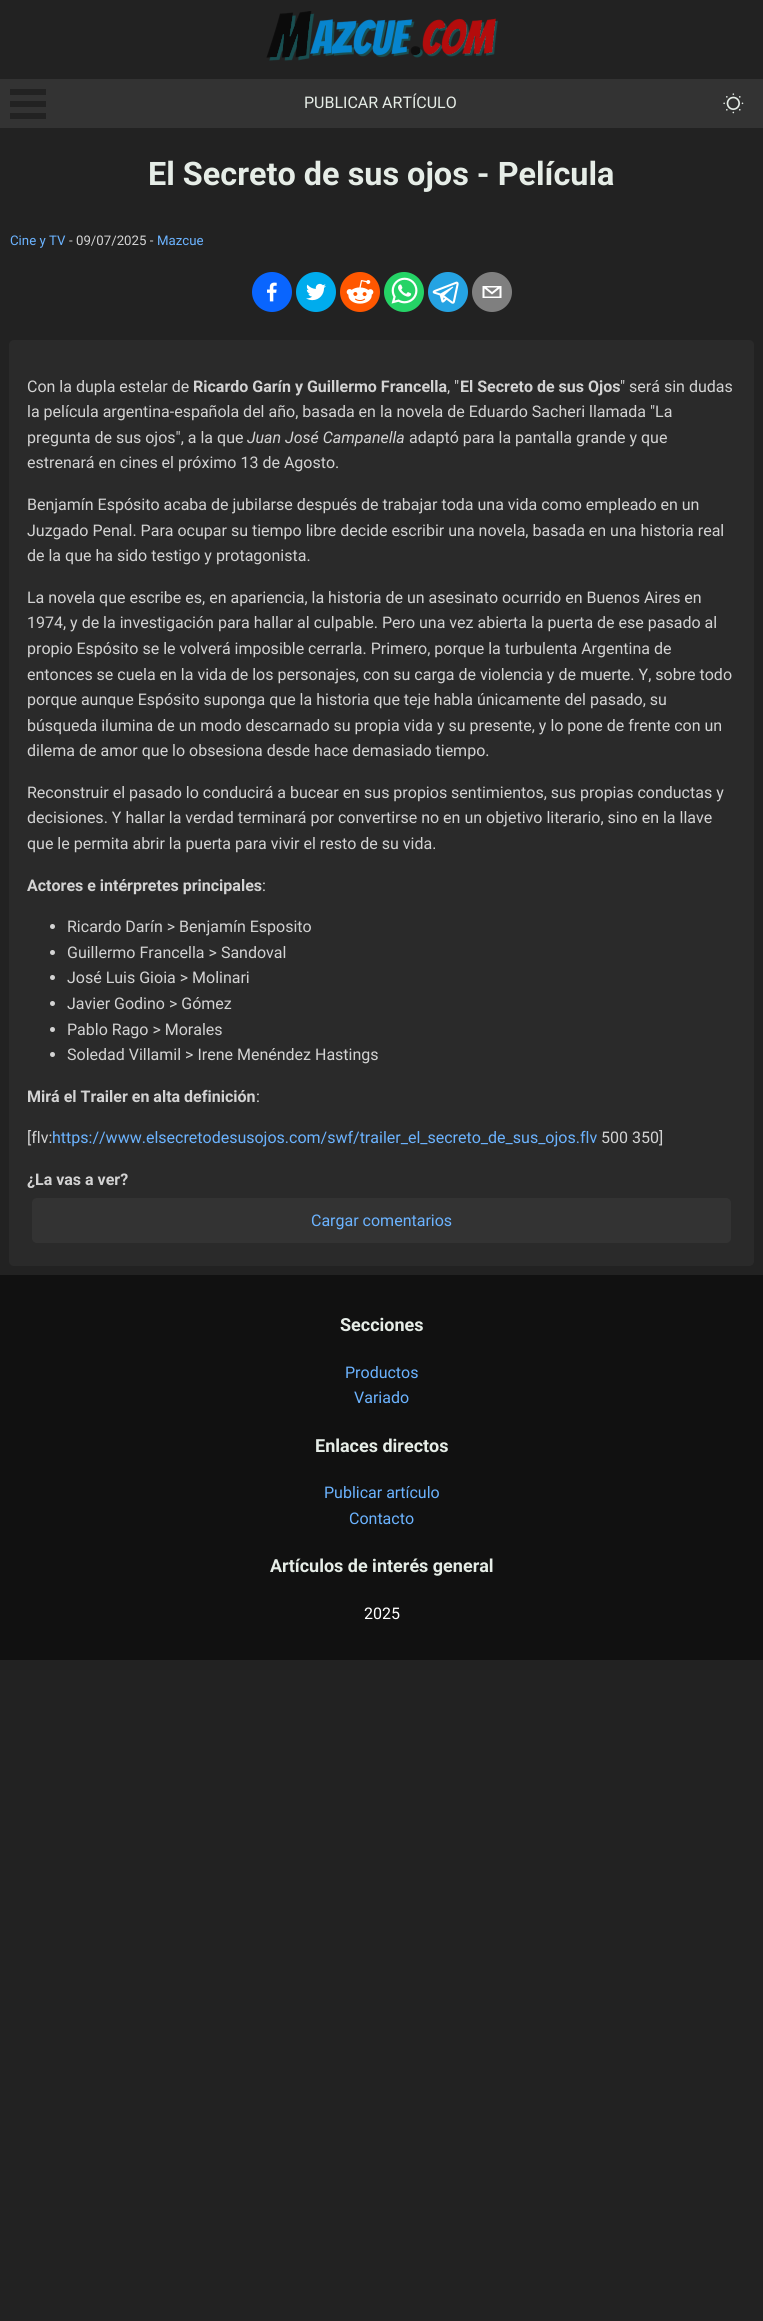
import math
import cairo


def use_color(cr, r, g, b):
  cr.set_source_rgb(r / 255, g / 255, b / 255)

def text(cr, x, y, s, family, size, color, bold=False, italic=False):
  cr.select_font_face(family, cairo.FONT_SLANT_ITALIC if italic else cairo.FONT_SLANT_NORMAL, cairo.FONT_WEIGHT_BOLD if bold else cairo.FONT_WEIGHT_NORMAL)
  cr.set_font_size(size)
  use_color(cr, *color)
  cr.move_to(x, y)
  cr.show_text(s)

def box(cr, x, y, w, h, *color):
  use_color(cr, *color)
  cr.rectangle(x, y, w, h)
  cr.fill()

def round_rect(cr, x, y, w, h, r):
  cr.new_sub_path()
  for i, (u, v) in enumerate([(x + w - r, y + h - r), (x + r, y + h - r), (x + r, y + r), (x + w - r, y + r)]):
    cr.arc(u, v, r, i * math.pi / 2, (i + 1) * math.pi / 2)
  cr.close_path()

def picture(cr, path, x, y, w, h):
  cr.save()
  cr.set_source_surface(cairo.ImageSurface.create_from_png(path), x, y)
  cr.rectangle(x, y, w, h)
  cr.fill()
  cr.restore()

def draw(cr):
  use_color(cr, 34, 34, 34)
  cr.paint()
  picture(cr, "img_01.png", 266, 11, 232, 50)
  box(cr, 0, 79, 763, 49, 51, 51, 51)
  box(cr, 10, 89, 36, 6, 34, 34, 34)
  box(cr, 10, 101, 36, 6, 34, 34, 34)
  box(cr, 10, 113, 36, 6, 34, 34, 34)
  picture(cr, "img_02.png", 723, 93, 21, 21)
  picture(cr, "img_03.png", 252, 272, 40, 40)
  picture(cr, "img_04.png", 296, 272, 40, 40)
  picture(cr, "img_05.png", 340, 272, 40, 40)
  picture(cr, "img_06.png", 384, 272, 40, 40)
  picture(cr, "img_07.png", 428, 272, 40, 40)
  use_color(cr, 127, 127, 127)
  cr.arc(492, 292, 20, 0, 2 * math.pi)
  cr.fill()
  use_color(cr, 255, 255, 255)
  cr.new_path()
  cr.move_to(482.5, 286)
  cr.line_to(482.5, 298)
  cr.line_to(501.5, 298)
  cr.line_to(501.5, 286)
  cr.close_path()
  cr.move_to(497.5, 287.5)
  cr.line_to(492, 292)
  cr.line_to(486.5, 287.5)
  cr.close_path()
  cr.move_to(484.5, 296.5)
  cr.line_to(484.5, 288.5)
  cr.line_to(492, 294.5)
  cr.line_to(499.5, 288.5)
  cr.line_to(499.5, 296.5)
  cr.close_path()
  cr.fill()
  use_color(cr, 42, 42, 42)
  round_rect(cr, 9, 340, 745, 926, 5)
  cr.fill()
  use_color(cr, 211, 211, 211)
  cr.arc(52.5, 926.5, 2.5, 0, 2 * math.pi)
  cr.fill()
  cr.arc(52.5, 952.5, 2.5, 0, 2 * math.pi)
  cr.fill()
  cr.arc(52.5, 977.5, 2.5, 0, 2 * math.pi)
  cr.fill()
  cr.arc(52.5, 1003.5, 2.5, 0, 2 * math.pi)
  cr.fill()
  cr.arc(52.5, 1029.5, 2.5, 0, 2 * math.pi)
  cr.fill()
  cr.arc(52.5, 1054.5, 2.5, 0, 2 * math.pi)
  cr.fill()
  use_color(cr, 51, 51, 51)
  round_rect(cr, 32, 1198, 699, 45, 5)
  cr.fill()
  box(cr, 0, 1275, 763, 385, 17, 17, 17)
  text(cr, 304, 108, "PUBLICAR ARTÍCULO", "Roboto", 16, (230, 237, 231))
  text(cr, 148, 185, "El Secreto de sus ojos - Película", "Roboto", 32.4, (230, 237, 231), bold=True)
  text(cr, 10, 245, "Cine y TV", "Roboto", 13.25, (107, 179, 255))
  text(cr, 69, 245, "- 09/07/2025 -", "Roboto", 13.25, (211, 211, 211))
  text(cr, 157, 245, "Mazcue", "Roboto", 13.25, (107, 179, 255))
  text(cr, 27, 392, "Con la dupla estelar de", "Roboto", 16, (211, 211, 211))
  text(cr, 193, 392, "Ricardo Garín y Guillermo Francella", "Roboto", 16, (211, 211, 211), bold=True)
  text(cr, 447, 392, ", \"", "Roboto", 16, (211, 211, 211))
  text(cr, 460, 392, "El Secreto de sus Ojos", "Roboto", 16, (211, 211, 211), bold=True)
  text(cr, 620, 392, "\" será sin dudas", "Roboto", 16, (211, 211, 211))
  text(cr, 27, 417, "la película argentina-española del año, basada en la novela de Eduardo Sacheri llamada \"La", "Roboto", 16, (211, 211, 211))
  text(cr, 27, 443, "pregunta de sus ojos\", a la que", "Roboto", 16, (211, 211, 211))
  text(cr, 247, 443, "Juan José Campanella", "Roboto", 16, (211, 211, 211), italic=True)
  text(cr, 409, 443, "adaptó para la pantalla grande y que", "Roboto", 16, (211, 211, 211))
  text(cr, 27, 468, "estrenará en cines el próximo 13 de Agosto.", "Roboto", 16, (211, 211, 211))
  text(cr, 27, 510, "Benjamín Espósito acaba de jubilarse después de trabajar toda una vida como empleado en un", "Roboto", 16, (211, 211, 211))
  text(cr, 27, 536, "Juzgado Penal. Para ocupar su tiempo libre decide escribir una novela, basada en una historia real", "Roboto", 16, (211, 211, 211))
  text(cr, 27, 561, "de la que ha sido testigo y protagonista.", "Roboto", 16, (211, 211, 211))
  text(cr, 27, 603, "La novela que escribe es, en apariencia, la historia de un asesinato ocurrido en Buenos Aires en", "Roboto", 16, (211, 211, 211))
  text(cr, 27, 628, "1974, y de la investigación para hallar al culpable. Pero una vez abierta la puerta de ese pasado al", "Roboto", 16, (211, 211, 211))
  text(cr, 27, 654, "propio Espósito se le volverá imposible cerrarla. Primero, porque la turbulenta Argentina de", "Roboto", 16, (211, 211, 211))
  text(cr, 27, 680, "entonces se cuela en la vida de los personajes, con su carga de violencia y de muerte. Y, sobre todo", "Roboto", 16, (211, 211, 211))
  text(cr, 27, 705, "porque aunque Espósito suponga que la historia que teje habla únicamente del pasado, su", "Roboto", 16, (211, 211, 211))
  text(cr, 27, 731, "búsqueda ilumina de un modo descarnado su propia vida y su presente, y lo pone de frente con un", "Roboto", 16, (211, 211, 211))
  text(cr, 27, 756, "dilema de amor que lo obsesiona desde hace demasiado tiempo.", "Roboto", 16, (211, 211, 211))
  text(cr, 27, 798, "Reconstruir el pasado lo conducirá a bucear en sus propios sentimientos, sus propias conductas y", "Roboto", 16, (211, 211, 211))
  text(cr, 27, 823, "decisiones. Y hallar la verdad terminará por convertirse no en un objetivo literario, sino en la llave", "Roboto", 16, (211, 211, 211))
  text(cr, 27, 849, "que le permita abrir la puerta para vivir el resto de su vida.", "Roboto", 16, (211, 211, 211))
  text(cr, 27, 891, "Actores e intérpretes principales", "Roboto", 16, (211, 211, 211), bold=True)
  text(cr, 262, 891, ":", "Roboto", 16, (211, 211, 211))
  text(cr, 67, 932, "Ricardo Darín > Benjamín Esposito", "Roboto", 16, (211, 211, 211))
  text(cr, 67, 958, "Guillermo Francella > Sandoval", "Roboto", 16, (211, 211, 211))
  text(cr, 67, 983, "José Luis Gioia > Molinari", "Roboto", 16, (211, 211, 211))
  text(cr, 67, 1009, "Javier Godino > Gómez", "Roboto", 16, (211, 211, 211))
  text(cr, 67, 1035, "Pablo Rago > Morales", "Roboto", 16, (211, 211, 211))
  text(cr, 67, 1060, "Soledad Villamil > Irene Menéndez Hastings", "Roboto", 16, (211, 211, 211))
  text(cr, 27, 1102, "Mirá el Trailer en alta definición", "Roboto", 16, (211, 211, 211), bold=True)
  text(cr, 256, 1102, ":", "Roboto", 16, (211, 211, 211))
  text(cr, 27, 1143, "[flv:", "Roboto", 16, (211, 211, 211))
  text(cr, 52, 1143, "https://www.elsecretodesusojos.com/swf/trailer_el_secreto_de_sus_ojos.flv", "Roboto", 16, (107, 179, 255))
  text(cr, 601, 1143, "500 350]", "Roboto", 16, (211, 211, 211))
  text(cr, 27, 1185, "¿La vas a ver?", "Roboto", 16, (211, 211, 211), bold=True)
  text(cr, 311, 1226, "Cargar comentarios", "Roboto", 16, (107, 179, 255))
  text(cr, 340, 1331, "Secciones", "Roboto", 18, (230, 237, 231), bold=True)
  text(cr, 345, 1378, "Productos", "Roboto", 16, (107, 179, 255))
  text(cr, 354, 1403, "Variado", "Roboto", 16, (107, 179, 255))
  text(cr, 315, 1452, "Enlaces directos", "Roboto", 18, (230, 237, 231), bold=True)
  text(cr, 324, 1498, "Publicar artículo", "Roboto", 16, (107, 179, 255))
  text(cr, 349, 1524, "Contacto", "Roboto", 16, (107, 179, 255))
  text(cr, 270, 1572, "Artículos de interés general", "Roboto", 18, (230, 237, 231), bold=True)
  text(cr, 364, 1619, "2025", "Roboto", 16, (255, 255, 255))


surface = cairo.ImageSurface(cairo.FORMAT_RGB24, 763, 2321)
cr = cairo.Context(surface)
options = cairo.FontOptions()
options.set_hint_metrics(cairo.HINT_METRICS_OFF)
options.set_hint_style(cairo.HINT_STYLE_NONE)
cr.set_font_options(options)
cr.set_miter_limit(4)
draw(cr)
surface.write_to_png("out.png")
